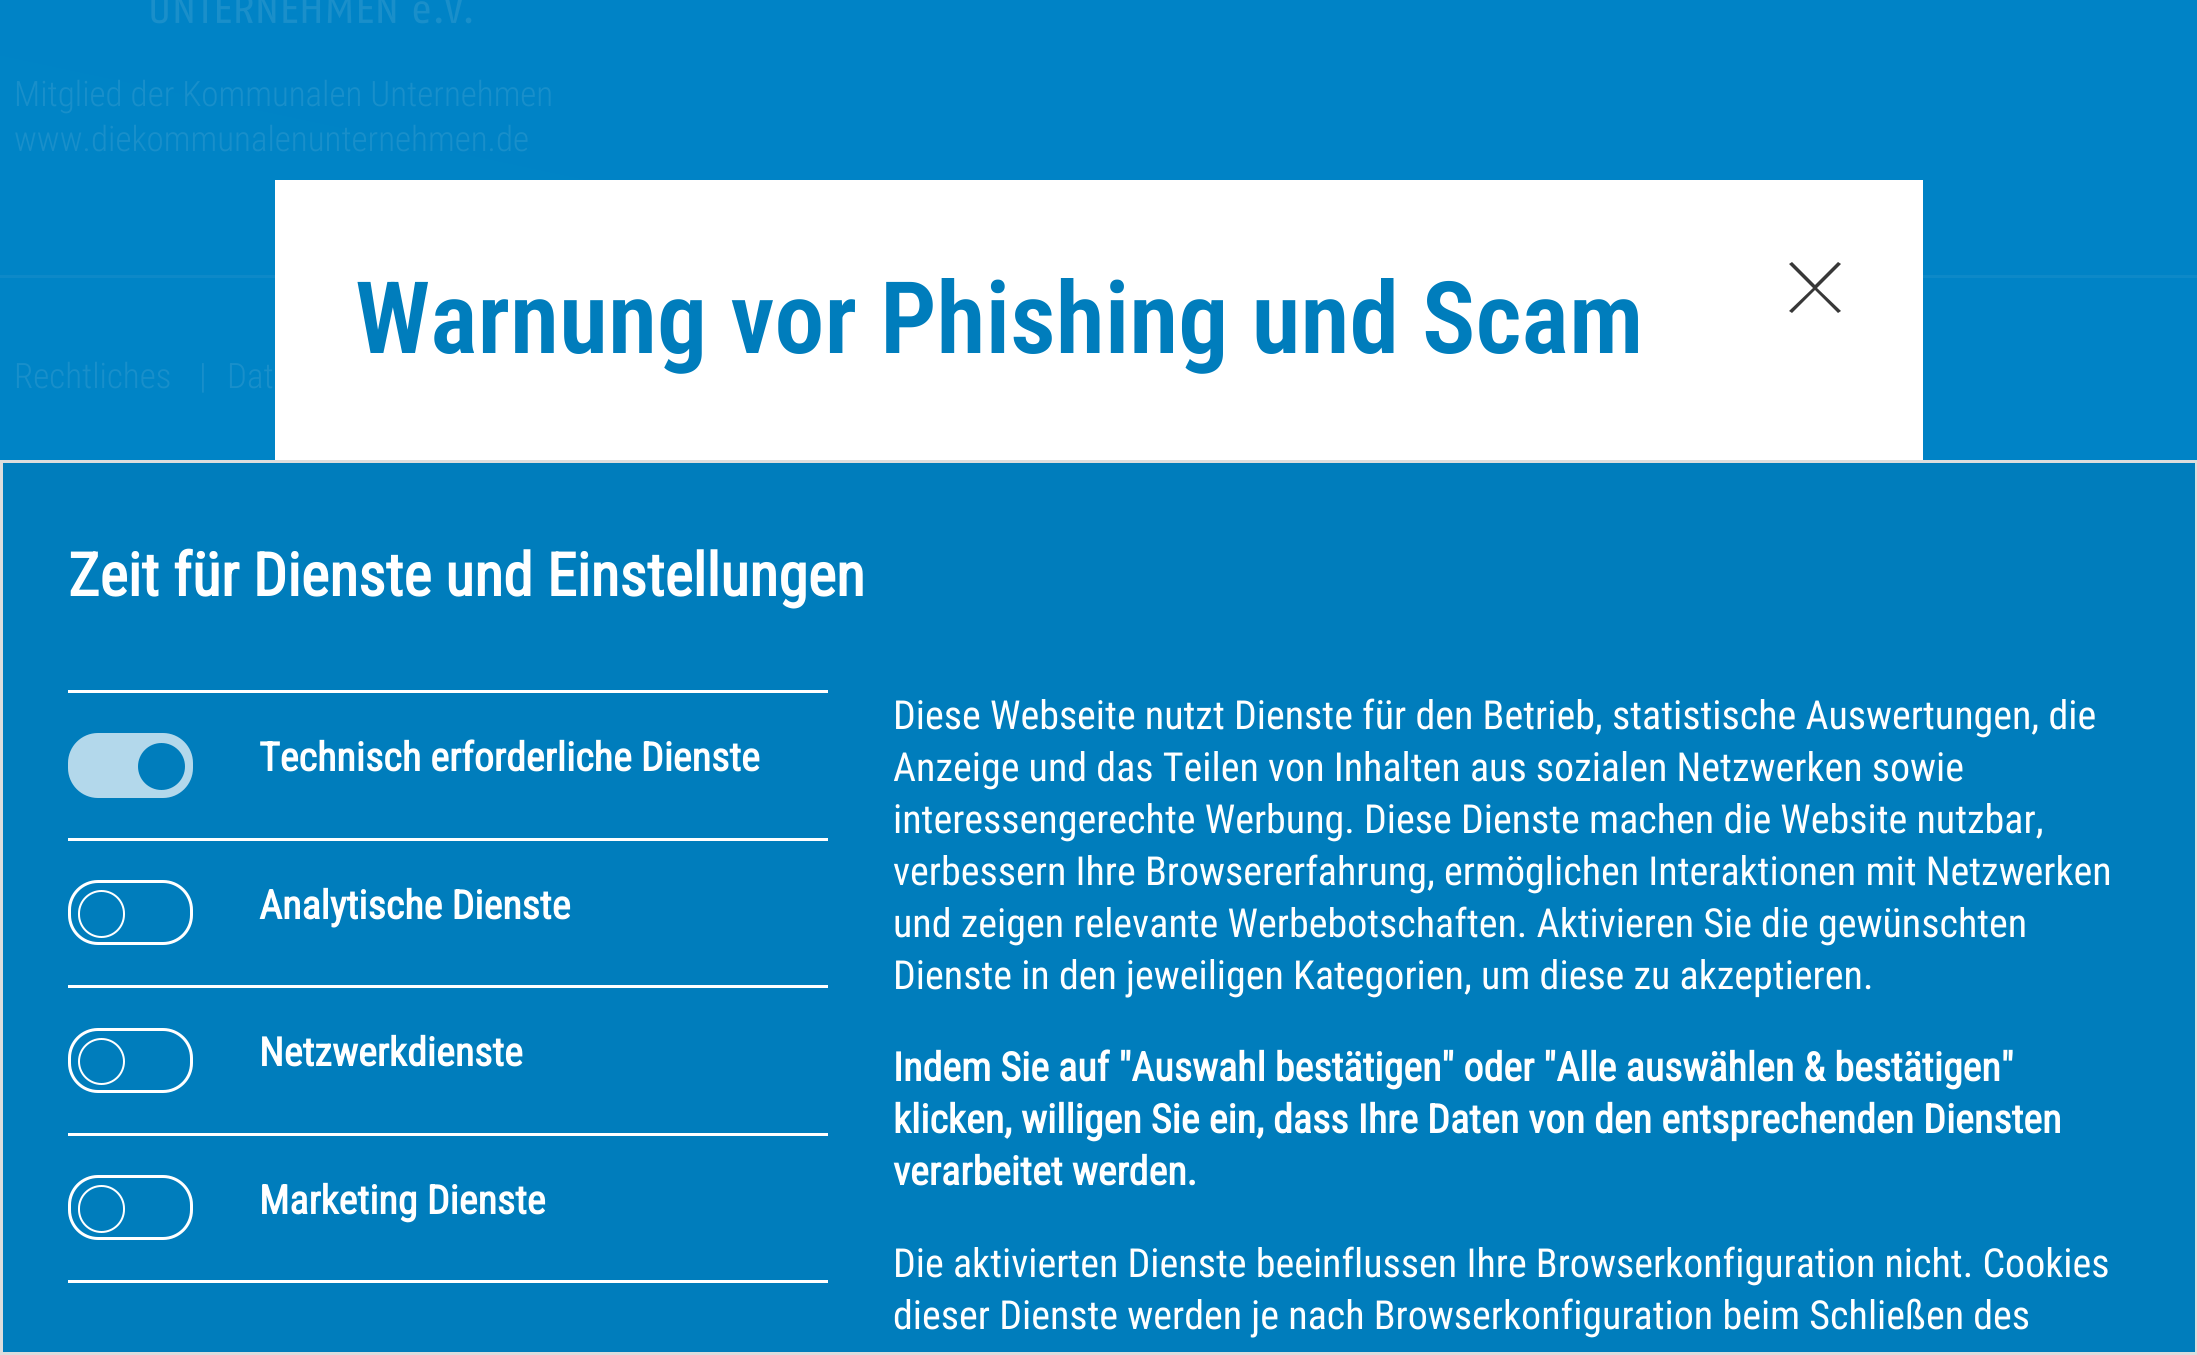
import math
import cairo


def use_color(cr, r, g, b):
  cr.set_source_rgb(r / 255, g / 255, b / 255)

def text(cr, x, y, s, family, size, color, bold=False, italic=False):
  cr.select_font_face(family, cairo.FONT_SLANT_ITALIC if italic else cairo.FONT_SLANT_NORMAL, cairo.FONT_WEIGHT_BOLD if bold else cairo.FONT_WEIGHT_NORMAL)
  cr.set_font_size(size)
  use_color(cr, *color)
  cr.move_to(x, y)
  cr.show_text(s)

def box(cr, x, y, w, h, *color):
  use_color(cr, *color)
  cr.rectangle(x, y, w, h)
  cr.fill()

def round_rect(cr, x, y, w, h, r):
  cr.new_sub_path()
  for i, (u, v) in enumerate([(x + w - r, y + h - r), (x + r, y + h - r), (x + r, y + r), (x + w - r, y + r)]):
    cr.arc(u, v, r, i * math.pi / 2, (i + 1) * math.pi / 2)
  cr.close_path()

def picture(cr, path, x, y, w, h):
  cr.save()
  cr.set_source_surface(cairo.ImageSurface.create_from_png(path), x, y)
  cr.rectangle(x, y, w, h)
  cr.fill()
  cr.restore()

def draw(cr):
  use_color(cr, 255, 255, 255)
  cr.paint()
  gradient = cairo.LinearGradient(1427, -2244, 771, 841)
  gradient.add_color_stop_rgba(0, 0, 0.506, 0.773, 1)
  gradient.add_color_stop_rgba(1, 0, 0.518, 0.776, 1)
  cr.set_source(gradient)
  cr.rectangle(0, 0, 2197, 460)
  cr.fill()
  gradient = cairo.LinearGradient(1427, -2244, 771, 841)
  gradient.add_color_stop_rgba(0, 0.051, 0.533, 0.784, 1)
  gradient.add_color_stop_rgba(1, 0.051, 0.537, 0.784, 1)
  cr.set_source(gradient)
  cr.rectangle(0, 275, 2197, 3)
  cr.fill()
  picture(cr, "img_01.png", 151, 0, 321, 24)
  use_color(cr, 0, 125, 188)
  cr.rectangle(1.5, 461.5, 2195, 892)
  cr.fill_preserve()
  use_color(cr, 221, 221, 221)
  cr.set_line_width(3)
  cr.stroke()
  box(cr, 68, 690, 760, 3, 255, 255, 255)
  use_color(cr, 179, 216, 235)
  round_rect(cr, 69.5, 734.5, 122, 62, 28.5)
  cr.fill_preserve()
  cr.stroke()
  use_color(cr, 0, 125, 188)
  cr.arc(161.5, 766.5, 22.5, 0, 2 * math.pi)
  cr.fill_preserve()
  cr.set_line_width(2)
  cr.stroke()
  box(cr, 68, 838, 760, 3, 255, 255, 255)
  round_rect(cr, 69.5, 881.5, 122, 62, 28.5)
  cr.set_line_width(3)
  cr.stroke()
  round_rect(cr, 79, 891, 45, 46, 22.5)
  cr.set_line_width(2)
  cr.stroke()
  box(cr, 68, 985, 760, 3, 255, 255, 255)
  round_rect(cr, 69.5, 1029.5, 122, 62, 28.5)
  cr.set_line_width(3)
  cr.stroke()
  cr.arc(101.5, 1061.5, 22.5, 0, 2 * math.pi)
  cr.set_line_width(2)
  cr.stroke()
  box(cr, 68, 1133, 760, 3, 255, 255, 255)
  box(cr, 68, 1280, 760, 3, 255, 255, 255)
  round_rect(cr, 69.5, 1176.5, 122, 62, 28.5)
  cr.set_line_width(3)
  cr.stroke()
  round_rect(cr, 79, 1186, 45, 46, 22.5)
  cr.set_line_width(2)
  cr.stroke()
  box(cr, 275, 180, 1648, 280, 255, 255, 255)
  use_color(cr, 56, 56, 56)
  cr.new_path()
  cr.move_to(1841, 264)
  cr.line_to(1838, 262)
  cr.line_to(1815, 285)
  cr.line_to(1792, 262)
  cr.line_to(1789, 264)
  cr.line_to(1813, 288)
  cr.line_to(1789, 311)
  cr.line_to(1792, 313)
  cr.line_to(1815, 290)
  cr.line_to(1838, 313)
  cr.line_to(1841, 311)
  cr.line_to(1817, 288)
  cr.close_path()
  cr.fill()
  text(cr, 14, 106, "Mitglied der Kommunalen Unternehmen", "Roboto Condensed Light", 35, (25, 143, 202))
  text(cr, 14, 151, "www.diekommunalenunternehmen.de", "Roboto Condensed Light", 35, (25, 143, 202))
  text(cr, 14, 388, "Rechtliches", "Roboto Condensed Light", 35, (25, 143, 202))
  text(cr, 199, 388, "|", "Roboto Condensed Light", 35, (25, 143, 202))
  text(cr, 227, 388, "Dat", "Roboto Condensed Light", 35, (25, 143, 202))
  text(cr, 68, 596, "Zeit für Dienste und Einstellungen", "Roboto Condensed", 60, (255, 255, 255), bold=True)
  text(cr, 259, 771, "Technisch erforderliche Dienste", "Roboto Condensed", 40, (255, 255, 255), bold=True)
  text(cr, 259, 919, "Analytische Dienste", "Roboto Condensed", 40, (255, 255, 255), bold=True)
  text(cr, 259, 1066, "Netzwerkdienste", "Roboto Condensed", 40, (255, 255, 255), bold=True)
  text(cr, 259, 1214, "Marketing Dienste", "Roboto Condensed", 40, (255, 255, 255), bold=True)
  text(cr, 893, 729, "Diese Webseite nutzt Dienste für den Betrieb, statistische Auswertungen, die", "Roboto Condensed", 40, (255, 255, 255))
  text(cr, 893, 781, "Anzeige und das Teilen von Inhalten aus sozialen Netzwerken sowie", "Roboto Condensed", 40, (255, 255, 255))
  text(cr, 893, 833, "interessengerechte Werbung. Diese Dienste machen die Website nutzbar,", "Roboto Condensed", 40, (255, 255, 255))
  text(cr, 893, 885, "verbessern Ihre Browsererfahrung, ermöglichen Interaktionen mit Netzwerken", "Roboto Condensed", 40, (255, 255, 255))
  text(cr, 893, 937, "und zeigen relevante Werbebotschaften. Aktivieren Sie die gewünschten", "Roboto Condensed", 40, (255, 255, 255))
  text(cr, 893, 989, "Dienste in den jeweiligen Kategorien, um diese zu akzeptieren.", "Roboto Condensed", 40, (255, 255, 255))
  text(cr, 893, 1081, "Indem Sie auf \"Auswahl bestätigen\" oder \"Alle auswählen & bestätigen\"", "Roboto Condensed", 40, (255, 255, 255), bold=True)
  text(cr, 893, 1133, "klicken, willigen Sie ein, dass Ihre Daten von den entsprechenden Diensten", "Roboto Condensed", 40, (255, 255, 255), bold=True)
  text(cr, 893, 1185, "verarbeitet werden.", "Roboto Condensed", 40, (255, 255, 255), bold=True)
  text(cr, 893, 1277, "Die aktivierten Dienste beeinflussen Ihre Browserkonfiguration nicht. Cookies", "Roboto Condensed", 40, (255, 255, 255))
  text(cr, 893, 1329, "dieser Dienste werden je nach Browserkonfiguration beim Schließen des", "Roboto Condensed", 40, (255, 255, 255))
  text(cr, 355, 353, "Warnung vor Phishing und Scam", "Roboto Condensed SemiBold", 100, (0, 125, 188))


surface = cairo.ImageSurface(cairo.FORMAT_RGB24, 2197, 1355)
cr = cairo.Context(surface)
options = cairo.FontOptions()
options.set_hint_metrics(cairo.HINT_METRICS_OFF)
options.set_hint_style(cairo.HINT_STYLE_NONE)
cr.set_font_options(options)
cr.set_miter_limit(4)
draw(cr)
surface.write_to_png("out.png")
